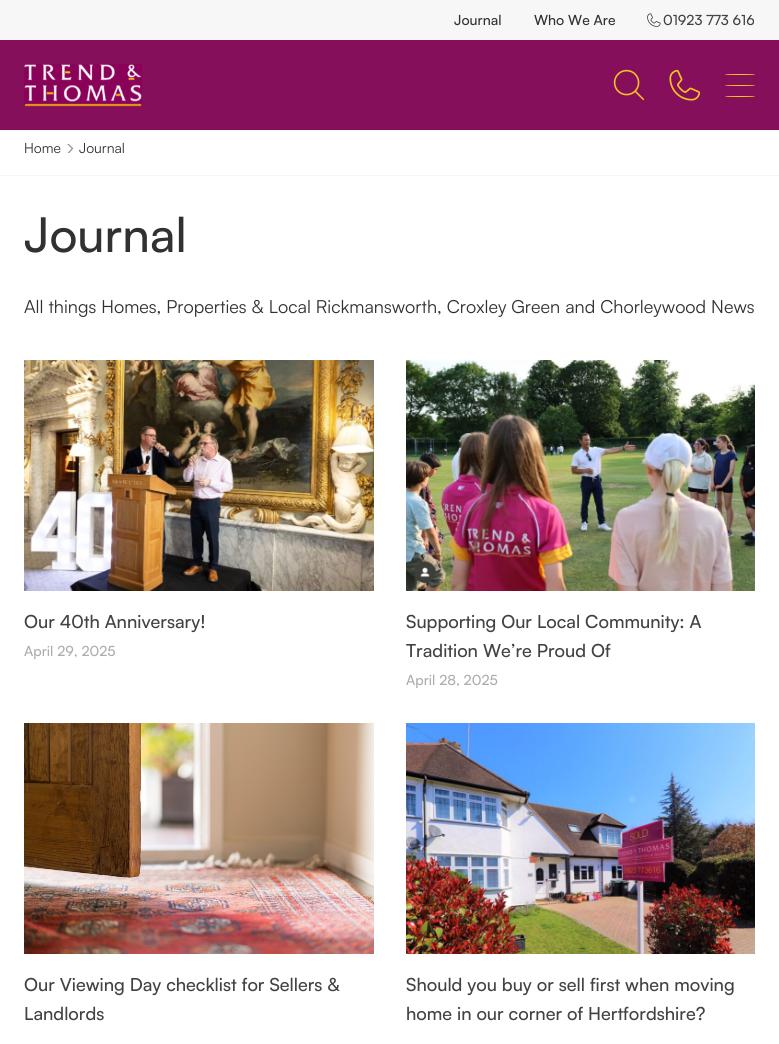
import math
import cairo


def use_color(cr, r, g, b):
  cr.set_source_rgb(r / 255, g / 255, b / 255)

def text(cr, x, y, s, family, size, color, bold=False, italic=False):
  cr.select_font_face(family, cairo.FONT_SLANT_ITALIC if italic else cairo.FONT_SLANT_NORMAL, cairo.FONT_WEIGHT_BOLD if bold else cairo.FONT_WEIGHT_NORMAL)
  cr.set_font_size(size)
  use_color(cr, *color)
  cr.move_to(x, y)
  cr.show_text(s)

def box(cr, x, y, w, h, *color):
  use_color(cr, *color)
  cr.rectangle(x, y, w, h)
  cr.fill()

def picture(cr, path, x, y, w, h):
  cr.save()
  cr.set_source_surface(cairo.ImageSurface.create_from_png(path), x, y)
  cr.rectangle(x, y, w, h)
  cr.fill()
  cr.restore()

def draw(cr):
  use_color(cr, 255, 255, 255)
  cr.paint()
  box(cr, 0, 130, 779, 1, 247, 247, 247)
  box(cr, 0, 0, 779, 40, 247, 247, 247)
  picture(cr, "img_01.png", 647, 13, 14, 14)
  box(cr, 0, 40, 779, 90, 133, 15, 91)
  picture(cr, "img_02.png", 24, 64, 118, 43)
  picture(cr, "img_03.png", 613, 69, 32, 32)
  picture(cr, "img_04.png", 669, 69, 32, 32)
  use_color(cr, 248, 194, 34)
  cr.new_path()
  cr.move_to(740, 74)
  cr.curve_to(748.5, 74, 755, 74, 755, 74.5)
  cr.curve_to(755, 75, 748.5, 75, 740, 75)
  cr.curve_to(731.5, 75, 725, 75, 725, 74.5)
  cr.curve_to(725, 74, 731.5, 74, 740, 74)
  cr.close_path()
  cr.fill()
  cr.new_path()
  cr.move_to(740, 85)
  cr.curve_to(748.5, 85, 755, 85, 755, 85.5)
  cr.curve_to(755, 86, 748.5, 86, 740, 86)
  cr.curve_to(731.5, 86, 725, 86, 725, 85.5)
  cr.curve_to(725, 85, 731.5, 85, 740, 85)
  cr.close_path()
  cr.fill()
  cr.new_path()
  cr.move_to(740, 96)
  cr.curve_to(748.5, 96, 755, 96, 755, 96.5)
  cr.curve_to(755, 97, 748.5, 97, 740, 97)
  cr.curve_to(731.5, 97, 725, 97, 725, 96.5)
  cr.curve_to(725, 96, 731.5, 96, 740, 96)
  cr.close_path()
  cr.fill()
  box(cr, 0, 175, 779, 1, 247, 247, 247)
  cr.save()
  cr.rectangle(65, 144, 9, 9)
  cr.clip()
  cr.new_path()
  cr.move_to(66.5, 142.5)
  cr.line_to(72.5, 148.5)
  cr.line_to(66.5, 155)
  use_color(cr, 150, 150, 150)
  cr.set_line_width(1.3)
  cr.set_line_cap(cairo.LINE_CAP_ROUND)
  cr.set_line_join(cairo.LINE_JOIN_ROUND)
  cr.stroke()
  cr.restore()
  picture(cr, "img_05.png", 24, 360, 350, 231)
  picture(cr, "img_06.png", 406, 360, 349, 231)
  picture(cr, "img_07.png", 24, 723, 350, 231)
  picture(cr, "img_08.png", 406, 723, 349, 231)
  text(cr, 454, 25, "Journal", "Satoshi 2 Medium", 14, (49, 49, 49))
  text(cr, 534, 25, "Who We Are", "Satoshi 2 Medium", 14, (49, 49, 49))
  text(cr, 663, 25, "01923 773 616", "Satoshi 2 Medium", 14, (66, 66, 66))
  text(cr, 24, 153, "Home", "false", 14, (49, 49, 49))
  text(cr, 79, 153, "Journal", "false", 14, (49, 49, 49))
  text(cr, 24, 252, "Journal", "Satoshi Medium", 48, (49, 49, 49))
  text(cr, 24, 313, "All things Homes, Properties & Local Rickmansworth, Croxley Green and Chorleywood News", "false", 18, (49, 49, 49))
  text(cr, 24, 628, "Our 40th Anniversary!", "Satoshi Medium", 18, (66, 66, 66))
  text(cr, 24, 656, "April 29, 2025", "Satoshi 2 Medium", 14, (173, 173, 173))
  text(cr, 406, 628, "Supporting Our Local Community: A", "Satoshi Medium", 18, (66, 66, 66))
  text(cr, 406, 657, "Tradition We’re Proud Of", "Satoshi Medium", 18, (66, 66, 66))
  text(cr, 406, 685, "April 28, 2025", "Satoshi 2 Medium", 14, (173, 173, 173))
  text(cr, 24, 991, "Our Viewing Day checklist for Sellers &", "Satoshi Medium", 18, (66, 66, 66))
  text(cr, 24, 1020, "Landlords", "Satoshi Medium", 18, (66, 66, 66))
  text(cr, 406, 991, "Should you buy or sell first when moving", "Satoshi Medium", 18, (66, 66, 66))
  text(cr, 406, 1020, "home in our corner of Hertfordshire?", "Satoshi Medium", 18, (66, 66, 66))


surface = cairo.ImageSurface(cairo.FORMAT_RGB24, 779, 1044)
cr = cairo.Context(surface)
options = cairo.FontOptions()
options.set_hint_metrics(cairo.HINT_METRICS_OFF)
options.set_hint_style(cairo.HINT_STYLE_NONE)
cr.set_font_options(options)
cr.set_miter_limit(4)
draw(cr)
surface.write_to_png("out.png")
